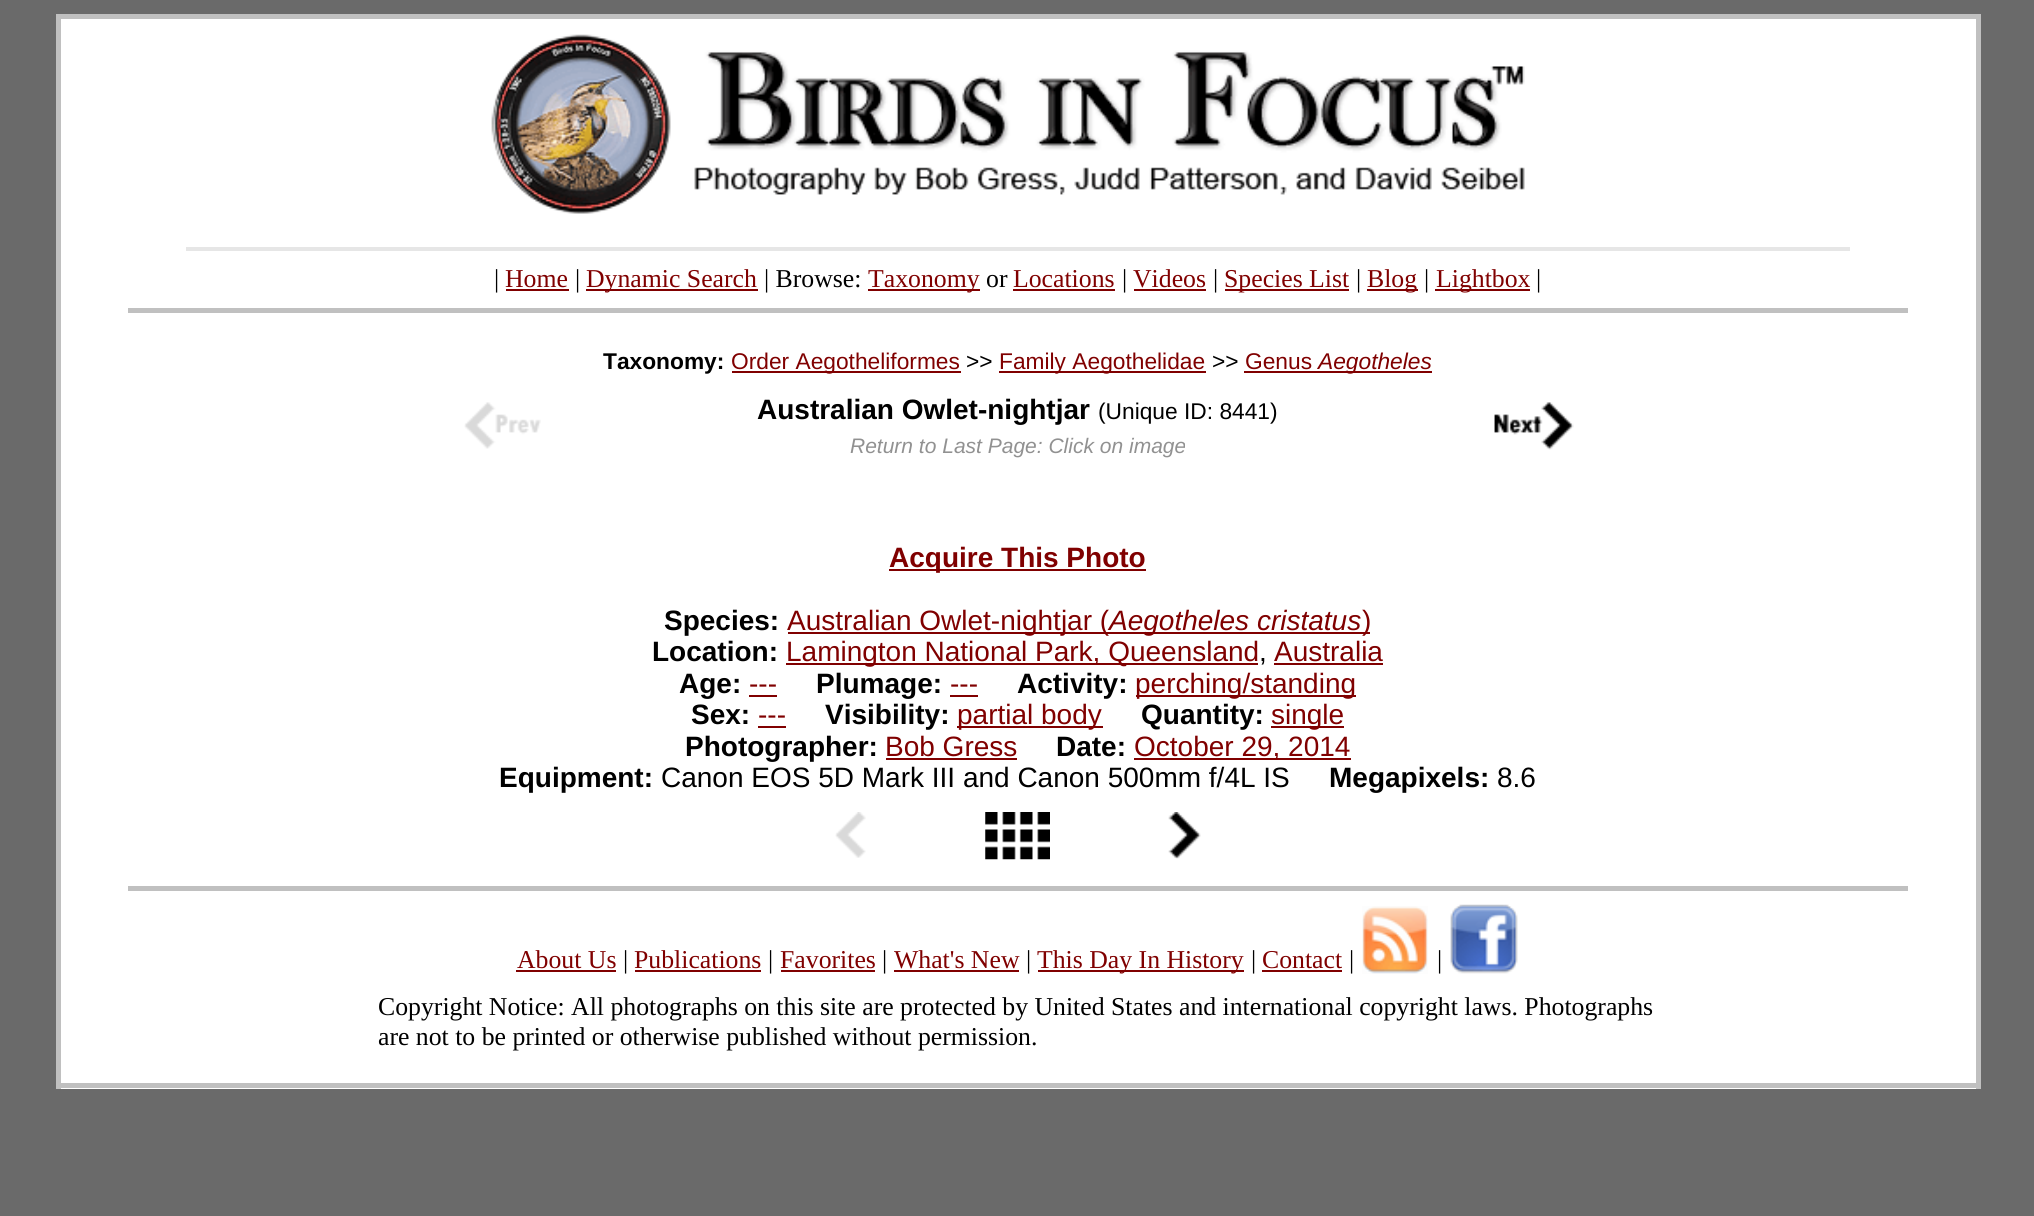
import math
import cairo


def use_color(cr, r, g, b):
  cr.set_source_rgb(r / 255, g / 255, b / 255)

def text(cr, x, y, s, family, size, color, bold=False, italic=False):
  cr.select_font_face(family, cairo.FONT_SLANT_ITALIC if italic else cairo.FONT_SLANT_NORMAL, cairo.FONT_WEIGHT_BOLD if bold else cairo.FONT_WEIGHT_NORMAL)
  cr.set_font_size(size)
  use_color(cr, *color)
  cr.move_to(x, y)
  cr.show_text(s)

def box(cr, x, y, w, h, *color):
  use_color(cr, *color)
  cr.rectangle(x, y, w, h)
  cr.fill()

def picture(cr, path, x, y, w, h):
  cr.save()
  cr.set_source_surface(cairo.ImageSurface.create_from_png(path), x, y)
  cr.rectangle(x, y, w, h)
  cr.fill()
  cr.restore()

def draw(cr):
  use_color(cr, 106, 106, 106)
  cr.paint()
  box(cr, 61, 19, 1915, 1070, 255, 255, 255)
  box(cr, 56, 14, 1925, 5, 192, 192, 192)
  box(cr, 1976, 14, 5, 1075, 192, 192, 192)
  box(cr, 56, 1083, 1925, 5, 192, 192, 192)
  box(cr, 56, 14, 5, 1075, 192, 192, 192)
  picture(cr, "img_01.png", 491, 34, 1034, 180)
  box(cr, 186, 247, 1664, 4, 230, 230, 230)
  box(cr, 506, 289, 63, 2, 128, 0, 0)
  box(cr, 586, 289, 172, 2, 128, 0, 0)
  box(cr, 868, 289, 112, 2, 128, 0, 0)
  box(cr, 1013, 289, 102, 2, 128, 0, 0)
  box(cr, 1134, 289, 72, 2, 128, 0, 0)
  box(cr, 1225, 289, 124, 2, 128, 0, 0)
  box(cr, 1367, 289, 51, 2, 128, 0, 0)
  box(cr, 1435, 289, 95, 2, 128, 0, 0)
  box(cr, 128, 308, 1780, 5, 192, 192, 192)
  box(cr, 732, 371, 229, 2, 128, 0, 0)
  box(cr, 999, 371, 207, 2, 128, 0, 0)
  box(cr, 1244, 371, 188, 2, 128, 0, 0)
  picture(cr, "img_02.png", 464, 402, 77, 47)
  picture(cr, "img_03.png", 1494, 402, 80, 48)
  box(cr, 889, 569, 257, 2, 128, 0, 0)
  box(cr, 788, 632, 582, 2, 128, 0, 0)
  box(cr, 786, 663, 472, 2, 128, 0, 0)
  box(cr, 1274, 663, 109, 2, 128, 0, 0)
  box(cr, 749, 695, 28, 2, 128, 0, 0)
  box(cr, 950, 695, 28, 2, 128, 0, 0)
  box(cr, 1136, 695, 220, 2, 128, 0, 0)
  box(cr, 758, 726, 28, 2, 128, 0, 0)
  box(cr, 957, 726, 146, 2, 128, 0, 0)
  box(cr, 1271, 726, 73, 2, 128, 0, 0)
  box(cr, 886, 758, 131, 2, 128, 0, 0)
  box(cr, 1134, 758, 217, 2, 128, 0, 0)
  picture(cr, "img_04.png", 835, 812, 31, 46)
  picture(cr, "img_05.png", 985, 812, 65, 48)
  picture(cr, "img_06.png", 1168, 812, 33, 47)
  box(cr, 128, 886, 1780, 5, 192, 192, 192)
  box(cr, 516, 970, 100, 2, 128, 0, 0)
  box(cr, 635, 970, 126, 2, 128, 0, 0)
  box(cr, 781, 970, 94, 2, 128, 0, 0)
  box(cr, 894, 970, 125, 2, 128, 0, 0)
  box(cr, 1038, 970, 206, 2, 128, 0, 0)
  box(cr, 1262, 970, 80, 2, 128, 0, 0)
  picture(cr, "img_07.png", 1362, 906, 66, 68)
  picture(cr, "img_08.png", 1450, 904, 68, 70)
  text(cr, 494, 287, "|", "Liberation Serif", 25.75, (0, 0, 0))
  text(cr, 505, 287, "Home", "Liberation Serif", 25.75, (128, 0, 0))
  text(cr, 575, 287, "|", "Liberation Serif", 25.75, (0, 0, 0))
  text(cr, 586, 287, "Dynamic Search", "Liberation Serif", 25.75, (128, 0, 0))
  text(cr, 764, 287, "| Browse:", "Liberation Serif", 25.75, (0, 0, 0))
  text(cr, 868, 287, "Taxonomy", "Liberation Serif", 25.75, (128, 0, 0))
  text(cr, 986, 287, "or", "Liberation Serif", 25.75, (0, 0, 0))
  text(cr, 1013, 287, "Locations", "Liberation Serif", 25.75, (128, 0, 0))
  text(cr, 1122, 287, "|", "Liberation Serif", 25.75, (0, 0, 0))
  text(cr, 1133, 287, "Videos", "Liberation Serif", 25.75, (128, 0, 0))
  text(cr, 1213, 287, "|", "Liberation Serif", 25.75, (0, 0, 0))
  text(cr, 1224, 287, "Species List", "Liberation Serif", 25.75, (128, 0, 0))
  text(cr, 1356, 287, "|", "Liberation Serif", 25.75, (0, 0, 0))
  text(cr, 1367, 287, "Blog", "Liberation Serif", 25.75, (128, 0, 0))
  text(cr, 1424, 287, "|", "Liberation Serif", 25.75, (0, 0, 0))
  text(cr, 1436, 287, "Lightbox", "Liberation Serif", 25.75, (128, 0, 0))
  text(cr, 1536, 287, "|", "Liberation Serif", 25.75, (0, 0, 0))
  text(cr, 603, 369, "Taxonomy:", "Liberation Sans", 22.75, (0, 0, 0), bold=True)
  text(cr, 731, 369, "Order Aegotheliformes", "Liberation Sans", 22.75, (128, 0, 0))
  text(cr, 966, 369, ">>", "Liberation Sans", 22.75, (0, 0, 0))
  text(cr, 999, 369, "Family Aegothelidae", "Liberation Sans", 22.75, (128, 0, 0))
  text(cr, 1212, 369, ">>", "Liberation Sans", 22.75, (0, 0, 0))
  text(cr, 1245, 369, "Genus", "Liberation Sans", 22.75, (128, 0, 0))
  text(cr, 1318, 369, "Aegotheles", "Liberation Sans", 22.75, (128, 0, 0), italic=True)
  text(cr, 757, 419, "Australian Owlet-nightjar", "Liberation Sans", 28, (0, 0, 0), bold=True)
  text(cr, 1098, 419, "(Unique ID: 8441)", "Liberation Sans", 22.75, (0, 0, 0))
  text(cr, 850, 453, "Return to Last Page: Click on image", "Liberation Sans", 21, (145, 145, 145), italic=True)
  text(cr, 889, 567, "Acquire This Photo", "Liberation Sans", 28, (128, 0, 0), bold=True)
  text(cr, 664, 630, "Species:", "Liberation Sans", 28, (0, 0, 0), bold=True)
  text(cr, 787, 630, "Australian Owlet-nightjar (", "Liberation Sans", 28, (128, 0, 0))
  text(cr, 1109, 630, "Aegotheles cristatus", "Liberation Sans", 28, (128, 0, 0), italic=True)
  text(cr, 1362, 630, ")", "Liberation Sans", 28, (128, 0, 0))
  text(cr, 652, 661, "Location:", "Liberation Sans", 28, (0, 0, 0), bold=True)
  text(cr, 786, 661, "Lamington National Park, Queensland", "Liberation Sans", 28, (128, 0, 0))
  text(cr, 1259, 661, ",", "Liberation Sans", 28, (0, 0, 0))
  text(cr, 1274, 661, "Australia", "Liberation Sans", 28, (128, 0, 0))
  text(cr, 679, 693, "Age:", "Liberation Sans", 28, (0, 0, 0), bold=True)
  text(cr, 749, 693, "---", "Liberation Sans", 28, (128, 0, 0))
  text(cr, 816, 693, "Plumage:", "Liberation Sans", 28, (0, 0, 0), bold=True)
  text(cr, 950, 693, "---", "Liberation Sans", 28, (128, 0, 0))
  text(cr, 1017, 693, "Activity:", "Liberation Sans", 28, (0, 0, 0), bold=True)
  text(cr, 1135, 693, "perching/standing", "Liberation Sans", 28, (128, 0, 0))
  text(cr, 691, 724, "Sex:", "Liberation Sans", 28, (0, 0, 0), bold=True)
  text(cr, 758, 724, "---", "Liberation Sans", 28, (128, 0, 0))
  text(cr, 825, 724, "Visibility:", "Liberation Sans", 28, (0, 0, 0), bold=True)
  text(cr, 957, 724, "partial body", "Liberation Sans", 28, (128, 0, 0))
  text(cr, 1141, 724, "Quantity:", "Liberation Sans", 28, (0, 0, 0), bold=True)
  text(cr, 1271, 724, "single", "Liberation Sans", 28, (128, 0, 0))
  text(cr, 685, 756, "Photographer:", "Liberation Sans", 28, (0, 0, 0), bold=True)
  text(cr, 885, 756, "Bob Gress", "Liberation Sans", 28, (128, 0, 0))
  text(cr, 1056, 756, "Date:", "Liberation Sans", 28, (0, 0, 0), bold=True)
  text(cr, 1134, 756, "October 29, 2014", "Liberation Sans", 28, (128, 0, 0))
  text(cr, 499, 787, "Equipment:", "Liberation Sans", 28, (0, 0, 0), bold=True)
  text(cr, 661, 787, "Canon EOS 5D Mark III and Canon 500mm f/4L IS", "Liberation Sans", 28, (0, 0, 0))
  text(cr, 1329, 787, "Megapixels:", "Liberation Sans", 28, (0, 0, 0), bold=True)
  text(cr, 1497, 787, "8.6", "Liberation Sans", 28, (0, 0, 0))
  text(cr, 517, 968, "About Us", "Liberation Serif", 25.75, (128, 0, 0))
  text(cr, 623, 968, "|", "Liberation Serif", 25.75, (0, 0, 0))
  text(cr, 634, 968, "Publications", "Liberation Serif", 25.75, (128, 0, 0))
  text(cr, 768, 968, "|", "Liberation Serif", 25.75, (0, 0, 0))
  text(cr, 780, 968, "Favorites", "Liberation Serif", 25.75, (128, 0, 0))
  text(cr, 882, 968, "|", "Liberation Serif", 25.75, (0, 0, 0))
  text(cr, 894, 968, "What's New", "Liberation Serif", 25.75, (128, 0, 0))
  text(cr, 1026, 968, "|", "Liberation Serif", 25.75, (0, 0, 0))
  text(cr, 1037, 968, "This Day In History", "Liberation Serif", 25.75, (128, 0, 0))
  text(cr, 1251, 968, "|", "Liberation Serif", 25.75, (0, 0, 0))
  text(cr, 1262, 968, "Contact", "Liberation Serif", 25.75, (128, 0, 0))
  text(cr, 1349, 968, "|", "Liberation Serif", 25.75, (0, 0, 0))
  text(cr, 1437, 968, "|", "Liberation Serif", 25.75, (0, 0, 0))
  text(cr, 378, 1015, "Copyright Notice: All photographs on this site are protected by United States and international copyright laws. Photographs", "Liberation Serif", 25.75, (0, 0, 0))
  text(cr, 378, 1045, "are not to be printed or otherwise published without permission.", "Liberation Serif", 25.75, (0, 0, 0))


surface = cairo.ImageSurface(cairo.FORMAT_RGB24, 2034, 1216)
cr = cairo.Context(surface)
options = cairo.FontOptions()
options.set_hint_metrics(cairo.HINT_METRICS_OFF)
options.set_hint_style(cairo.HINT_STYLE_NONE)
cr.set_font_options(options)
cr.set_miter_limit(4)
draw(cr)
surface.write_to_png("out.png")
